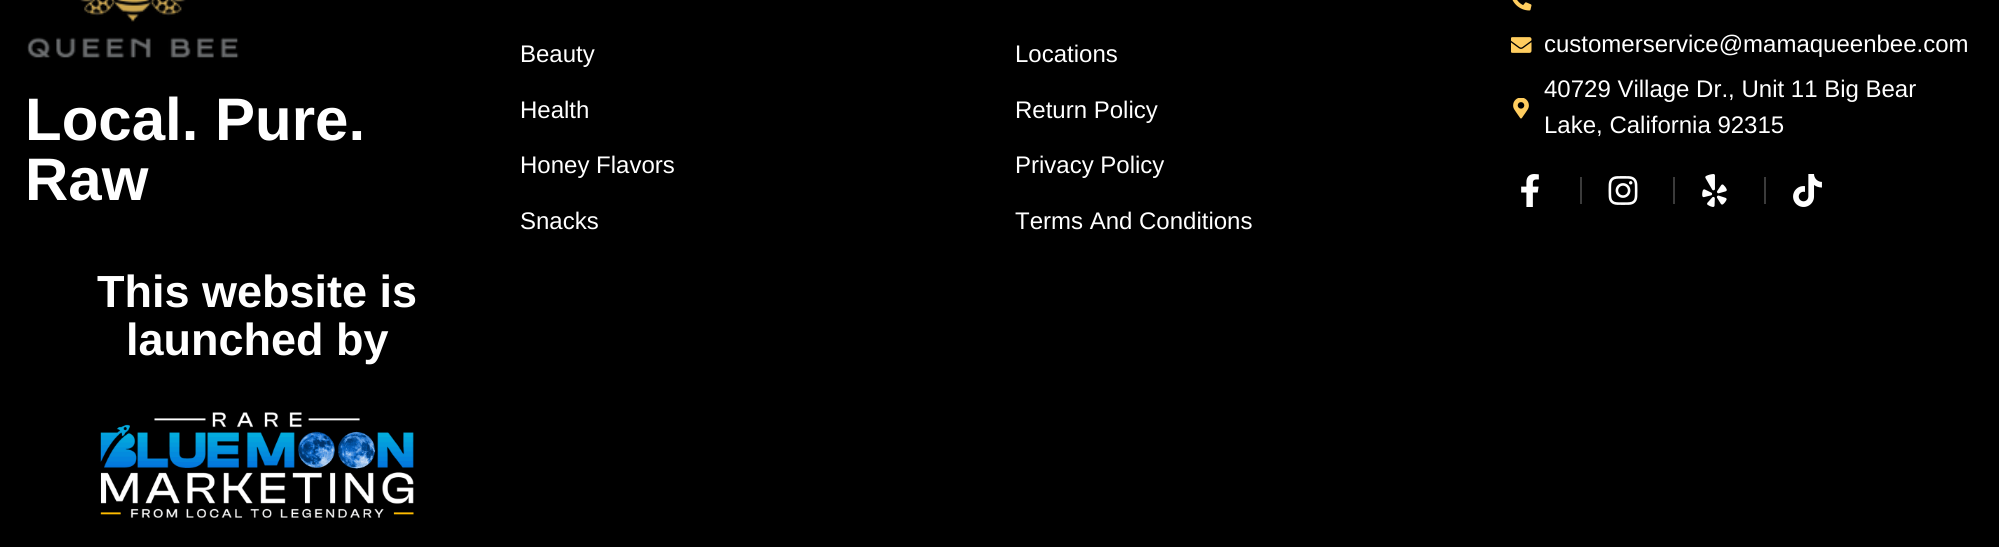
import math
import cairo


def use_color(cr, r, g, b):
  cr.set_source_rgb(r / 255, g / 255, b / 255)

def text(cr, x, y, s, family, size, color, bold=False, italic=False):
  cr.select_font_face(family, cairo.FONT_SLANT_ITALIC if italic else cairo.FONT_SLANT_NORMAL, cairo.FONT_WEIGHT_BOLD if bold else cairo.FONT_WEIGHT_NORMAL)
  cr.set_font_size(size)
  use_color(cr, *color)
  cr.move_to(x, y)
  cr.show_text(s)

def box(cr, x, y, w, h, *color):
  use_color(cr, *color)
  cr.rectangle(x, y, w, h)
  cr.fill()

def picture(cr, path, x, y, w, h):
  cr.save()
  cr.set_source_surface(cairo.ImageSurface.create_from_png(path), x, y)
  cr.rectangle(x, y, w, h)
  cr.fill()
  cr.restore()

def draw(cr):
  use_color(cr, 0, 0, 0)
  cr.paint()
  picture(cr, "img_01.png", 27, 0, 212, 58)
  picture(cr, "img_02.png", 100, 412, 314, 106)
  picture(cr, "img_03.png", 1512, 0, 20, 11)
  picture(cr, "img_04.png", 1511, 37, 21, 16)
  picture(cr, "img_05.png", 1513, 98, 16, 21)
  picture(cr, "img_06.png", 1521, 174, 18, 33)
  box(cr, 1580, 177, 2, 27, 59, 59, 59)
  picture(cr, "img_07.png", 1608, 176, 30, 29)
  box(cr, 1673, 177, 2, 27, 59, 59, 59)
  picture(cr, "img_08.png", 1702, 174, 25, 33)
  box(cr, 1764, 177, 2, 27, 59, 59, 59)
  picture(cr, "img_09.png", 1793, 174, 29, 33)
  text(cr, 25, 140, "Local. Pure.", "Liberation Sans", 60, (255, 255, 255), bold=True)
  text(cr, 25, 200, "Raw", "Liberation Sans", 60, (255, 255, 255), bold=True)
  text(cr, 97, 307, "This website is", "Liberation Sans", 45, (255, 255, 255), bold=True)
  text(cr, 126, 355, "launched by", "Liberation Sans", 45, (255, 255, 255), bold=True)
  text(cr, 520, 62, "Beauty", "Liberation Sans", 24, (255, 255, 255))
  text(cr, 520, 118, "Health", "Liberation Sans", 24, (255, 255, 255))
  text(cr, 520, 173, "Honey Flavors", "Liberation Sans", 24, (255, 255, 255))
  text(cr, 520, 229, "Snacks", "Liberation Sans", 24, (255, 255, 255))
  text(cr, 1015, 62, "Locations", "Liberation Sans", 24, (255, 255, 255))
  text(cr, 1015, 118, "Return Policy", "Liberation Sans", 24, (255, 255, 255))
  text(cr, 1015, 173, "Privacy Policy", "Liberation Sans", 24, (255, 255, 255))
  text(cr, 1015, 229, "Terms And Conditions", "Liberation Sans", 24, (255, 255, 255))
  text(cr, 1544, 52, "customerservice@mamaqueenbee.com", "Liberation Sans", 24, (255, 255, 255))
  text(cr, 1544, 97, "40729 Village Dr., Unit 11 Big Bear", "Liberation Sans", 24, (255, 255, 255))
  text(cr, 1544, 133, "Lake, California 92315", "Liberation Sans", 24, (255, 255, 255))


surface = cairo.ImageSurface(cairo.FORMAT_RGB24, 1999, 547)
cr = cairo.Context(surface)
options = cairo.FontOptions()
options.set_hint_metrics(cairo.HINT_METRICS_OFF)
options.set_hint_style(cairo.HINT_STYLE_NONE)
cr.set_font_options(options)
cr.set_miter_limit(4)
draw(cr)
surface.write_to_png("out.png")
